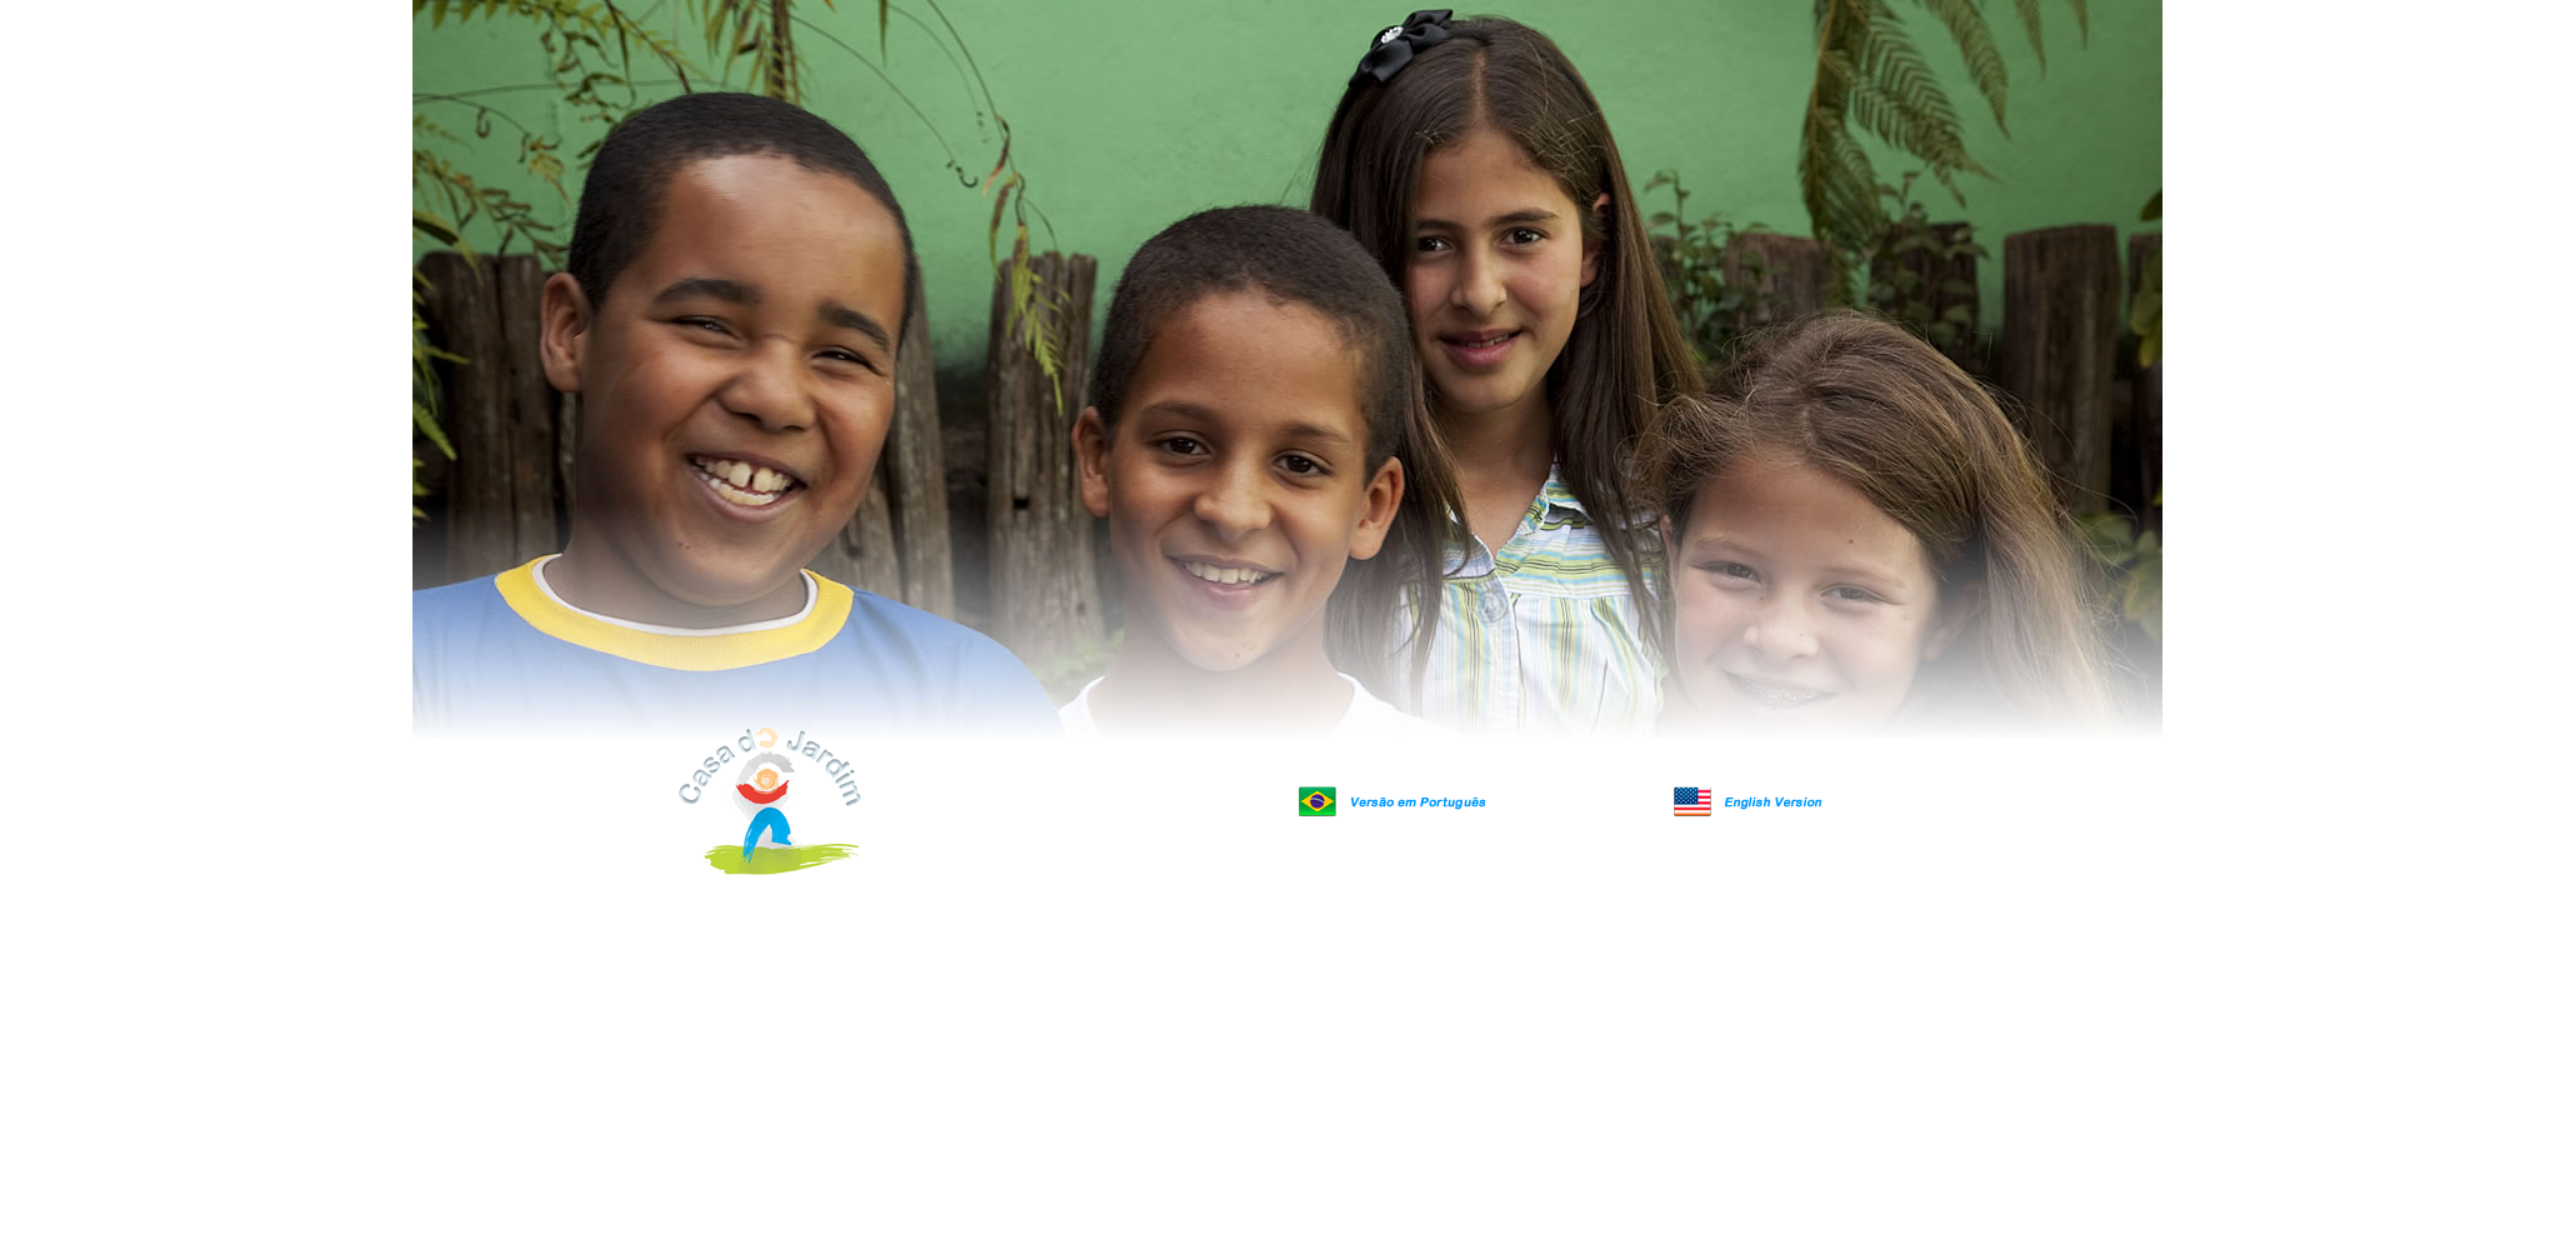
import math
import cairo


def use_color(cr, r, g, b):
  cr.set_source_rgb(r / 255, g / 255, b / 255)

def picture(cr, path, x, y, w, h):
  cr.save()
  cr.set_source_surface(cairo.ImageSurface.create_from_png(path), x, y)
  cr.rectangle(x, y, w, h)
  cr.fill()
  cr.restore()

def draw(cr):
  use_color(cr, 255, 255, 255)
  cr.paint()
  picture(cr, "img_01.png", 412, 0, 1751, 738)
  picture(cr, "img_02.png", 678, 726, 184, 150)
  picture(cr, "img_03.png", 1298, 786, 189, 31)
  picture(cr, "img_04.png", 1673, 786, 150, 32)


surface = cairo.ImageSurface(cairo.FORMAT_RGB24, 2573, 1250)
cr = cairo.Context(surface)
options = cairo.FontOptions()
options.set_hint_metrics(cairo.HINT_METRICS_OFF)
options.set_hint_style(cairo.HINT_STYLE_NONE)
cr.set_font_options(options)
cr.set_miter_limit(4)
draw(cr)
surface.write_to_png("out.png")
